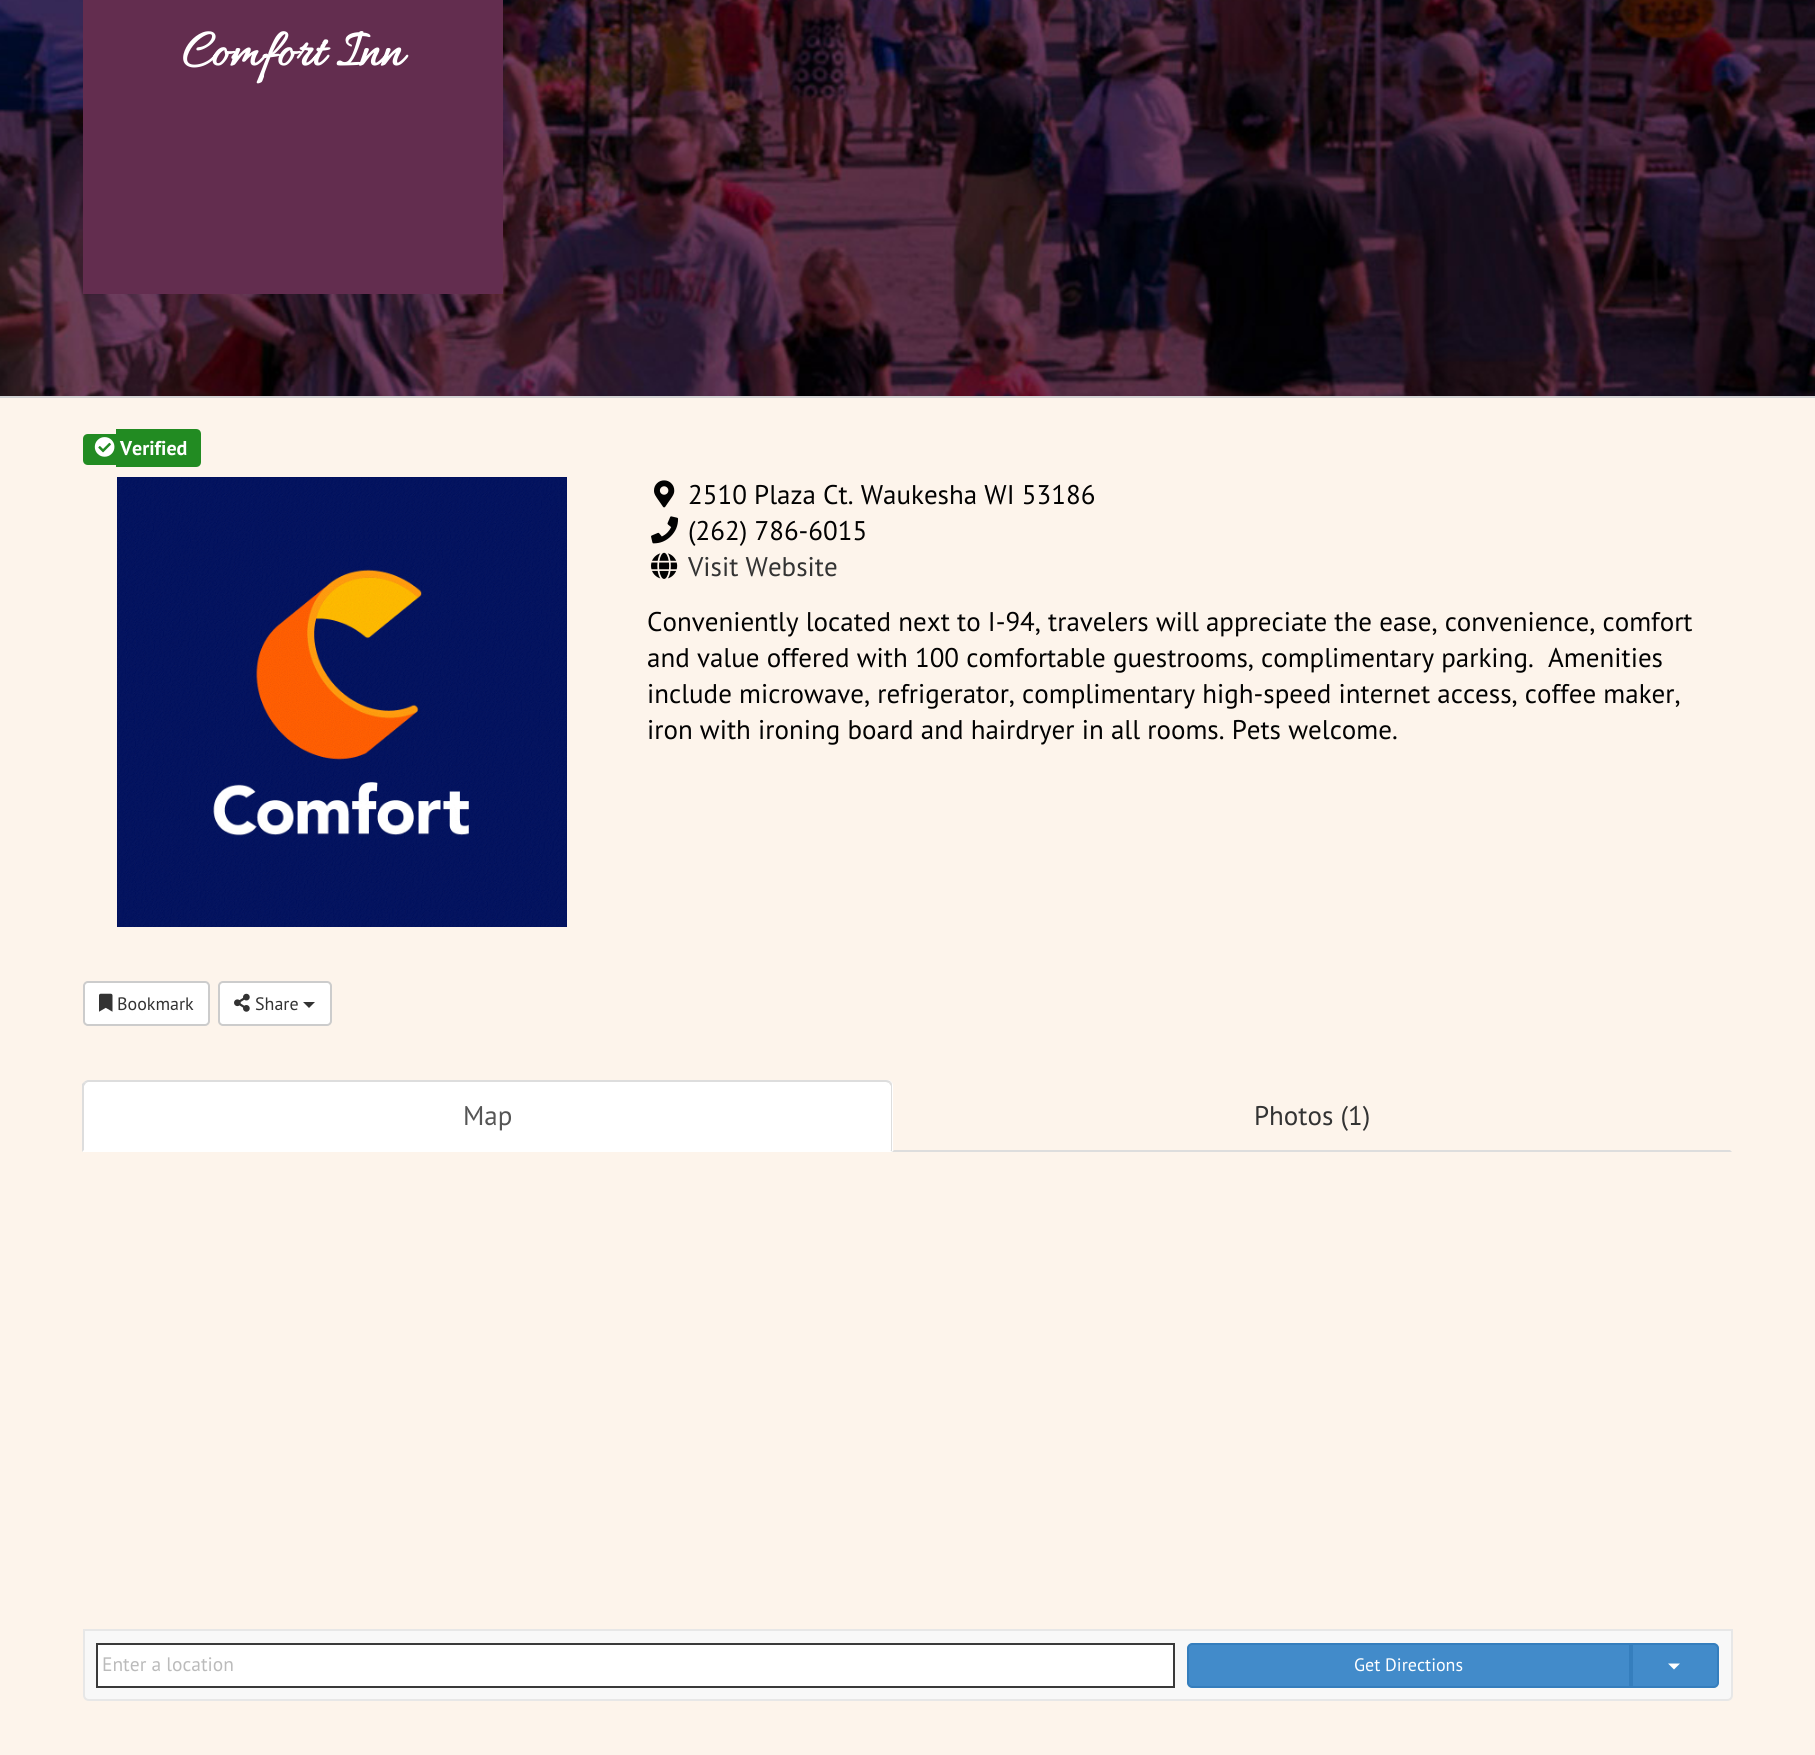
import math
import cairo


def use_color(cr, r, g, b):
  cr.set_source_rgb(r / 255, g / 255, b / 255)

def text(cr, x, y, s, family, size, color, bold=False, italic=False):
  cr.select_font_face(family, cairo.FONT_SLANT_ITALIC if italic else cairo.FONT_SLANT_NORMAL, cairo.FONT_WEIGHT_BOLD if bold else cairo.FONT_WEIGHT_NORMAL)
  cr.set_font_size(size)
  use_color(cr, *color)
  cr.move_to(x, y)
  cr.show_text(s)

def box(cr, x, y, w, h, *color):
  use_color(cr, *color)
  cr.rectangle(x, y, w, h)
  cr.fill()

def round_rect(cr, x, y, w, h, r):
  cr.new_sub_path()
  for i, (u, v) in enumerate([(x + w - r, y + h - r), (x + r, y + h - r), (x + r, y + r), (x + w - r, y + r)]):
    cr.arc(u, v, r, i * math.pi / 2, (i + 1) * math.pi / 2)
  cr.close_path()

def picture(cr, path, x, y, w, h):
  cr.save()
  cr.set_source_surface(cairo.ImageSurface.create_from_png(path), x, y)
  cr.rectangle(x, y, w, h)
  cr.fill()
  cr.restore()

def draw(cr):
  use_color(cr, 255, 255, 255)
  cr.paint()
  picture(cr, "img_01.png", 0, 0, 1815, 396)
  box(cr, 0, 396, 1815, 2, 210, 211, 212)
  box(cr, 83, 0, 420, 294, 99, 45, 79)
  box(cr, 0, 398, 1815, 1357, 253, 244, 235)
  use_color(cr, 34, 139, 34)
  cr.new_path()
  cr.move_to(88, 434)
  cr.line_to(116, 434)
  cr.line_to(116, 465)
  cr.line_to(88, 465)
  cr.curve_to(85, 465, 83, 463, 83, 460)
  cr.line_to(83, 439)
  cr.curve_to(83, 436, 85, 434, 88, 434)
  cr.close_path()
  cr.fill()
  cr.new_path()
  cr.move_to(116, 429)
  cr.line_to(196, 429)
  cr.curve_to(199, 429, 201, 431, 201, 434)
  cr.line_to(201, 462)
  cr.curve_to(201, 465, 199, 467, 196, 467)
  cr.line_to(116, 467)
  cr.close_path()
  cr.fill()
  picture(cr, "img_02.png", 94, 437, 21, 20)
  picture(cr, "img_03.png", 117, 477, 450, 450)
  picture(cr, "img_04.png", 654, 480, 21, 28)
  picture(cr, "img_05.png", 651, 516, 28, 28)
  picture(cr, "img_06.png", 651, 552, 27, 27)
  use_color(cr, 255, 255, 255)
  round_rect(cr, 84, 982, 125, 43, 4)
  cr.fill_preserve()
  use_color(cr, 204, 204, 204)
  cr.stroke()
  picture(cr, "img_07.png", 99, 993, 14, 19)
  use_color(cr, 255, 255, 255)
  round_rect(cr, 219, 982, 112, 43, 4)
  cr.fill_preserve()
  use_color(cr, 204, 204, 204)
  cr.stroke()
  picture(cr, "img_08.png", 234, 993, 16, 19)
  use_color(cr, 51, 51, 51)
  cr.new_path()
  cr.move_to(303, 1002)
  cr.line_to(315, 1002)
  cr.line_to(309, 1008)
  cr.close_path()
  cr.fill()
  use_color(cr, 255, 255, 255)
  cr.new_path()
  cr.move_to(89, 1080)
  cr.line_to(887, 1080)
  cr.curve_to(890.5, 1080, 893, 1082.5, 893, 1086)
  cr.line_to(893, 1152)
  cr.line_to(83, 1152)
  cr.line_to(83, 1086)
  cr.curve_to(83, 1082.5, 85.5, 1080, 89, 1080)
  cr.close_path()
  cr.fill()
  use_color(cr, 221, 221, 221)
  cr.new_path()
  cr.move_to(88, 1080)
  cr.curve_to(87, 1080, 85, 1081, 84, 1082)
  cr.line_to(86, 1083)
  cr.line_to(88, 1082)
  cr.line_to(886, 1082)
  cr.line_to(889, 1083)
  cr.line_to(891, 1082)
  cr.curve_to(890, 1081, 888, 1080, 886, 1080)
  cr.close_path()
  cr.fill()
  cr.new_path()
  cr.move_to(891, 1082)
  cr.curve_to(892, 1083, 892, 1085, 892, 1086)
  cr.line_to(892, 1152)
  cr.line_to(890, 1150)
  cr.line_to(891, 1150)
  cr.line_to(891, 1086)
  cr.line_to(889, 1083)
  cr.close_path()
  cr.fill()
  use_color(cr, 255, 255, 255)
  cr.new_path()
  cr.move_to(82, 1152)
  cr.line_to(892, 1152)
  cr.line_to(890, 1150)
  cr.line_to(84, 1150)
  cr.close_path()
  cr.fill()
  use_color(cr, 221, 221, 221)
  cr.new_path()
  cr.move_to(82, 1152)
  cr.line_to(82, 1084)
  cr.line_to(84, 1082)
  cr.line_to(86, 1083)
  cr.line_to(84, 1086)
  cr.line_to(84, 1150)
  cr.close_path()
  cr.fill()
  cr.new_path()
  cr.move_to(892, 1152)
  cr.line_to(1732, 1152)
  cr.line_to(1730, 1150)
  cr.line_to(894, 1150)
  cr.close_path()
  cr.fill()
  use_color(cr, 248, 248, 248)
  cr.new_path()
  cr.move_to(84, 1630)
  cr.line_to(1732, 1630)
  cr.line_to(1732, 1695)
  cr.curve_to(1732, 1698, 1730, 1700, 1727, 1700)
  cr.line_to(89, 1700)
  cr.curve_to(86, 1700, 84, 1698, 84, 1695)
  cr.close_path()
  cr.fill_preserve()
  use_color(cr, 231, 231, 231)
  cr.stroke()
  use_color(cr, 255, 255, 255)
  cr.rectangle(97, 1644, 1077, 43)
  cr.fill_preserve()
  use_color(cr, 58, 58, 58)
  cr.stroke()
  use_color(cr, 66, 139, 202)
  cr.new_path()
  cr.move_to(1192, 1644)
  cr.line_to(1630, 1644)
  cr.line_to(1630, 1687)
  cr.line_to(1192, 1687)
  cr.curve_to(1190, 1687, 1188, 1685, 1188, 1683)
  cr.line_to(1188, 1648)
  cr.curve_to(1188, 1646, 1190, 1644, 1192, 1644)
  cr.close_path()
  cr.fill_preserve()
  use_color(cr, 53, 126, 189)
  cr.stroke()
  use_color(cr, 66, 139, 202)
  cr.new_path()
  cr.move_to(1632, 1644)
  cr.line_to(1714, 1644)
  cr.curve_to(1716, 1644, 1718, 1646, 1718, 1648)
  cr.line_to(1718, 1683)
  cr.curve_to(1718, 1685, 1716, 1687, 1714, 1687)
  cr.line_to(1632, 1687)
  cr.close_path()
  cr.fill_preserve()
  use_color(cr, 53, 126, 189)
  cr.stroke()
  use_color(cr, 255, 255, 255)
  cr.new_path()
  cr.move_to(1668, 1663.5)
  cr.line_to(1680, 1663.5)
  cr.line_to(1674, 1669.5)
  cr.close_path()
  cr.fill()
  text(cr, 182, 65, "Comfort Inn", "Allura", 54, (255, 255, 255), bold=True)
  text(cr, 120, 455, "Verified", "PT Sans", 20, (255, 255, 255), bold=True)
  text(cr, 688, 504, "2510 Plaza Ct. Waukesha WI 53186", "PT Sans", 27, (2, 2, 2))
  text(cr, 688, 540, "(262) 786-6015", "PT Sans", 27, (2, 2, 2))
  text(cr, 688, 576, "Visit Website", "PT Sans", 27, (51, 51, 51))
  text(cr, 647, 631, "Conveniently located next to I-94, travelers will appreciate the ease, convenience, comfort", "PT Sans", 27, (2, 2, 2))
  text(cr, 647, 667, "and value offered with 100 comfortable guestrooms, complimentary parking.  Amenities", "PT Sans", 27, (2, 2, 2))
  text(cr, 647, 703, "include microwave, refrigerator, complimentary high-speed internet access, coffee maker,", "PT Sans", 27, (2, 2, 2))
  text(cr, 647, 739, "iron with ironing board and hairdryer in all rooms. Pets welcome.", "PT Sans", 27, (2, 2, 2))
  text(cr, 117, 1010, "Bookmark", "PT Sans", 18, (51, 51, 51))
  text(cr, 255, 1010, "Share", "PT Sans", 18, (51, 51, 51))
  text(cr, 463, 1125, "Map", "PT Sans", 27, (85, 85, 85))
  text(cr, 1254, 1125, "Photos (1)", "PT Sans", 27, (51, 51, 51))
  text(cr, 102, 1671, "Enter a location", "PT Sans", 19.5, (187, 187, 187))
  text(cr, 1354, 1671, "Get Directions", "PT Sans", 18, (255, 255, 255))


surface = cairo.ImageSurface(cairo.FORMAT_RGB24, 1815, 1755)
cr = cairo.Context(surface)
options = cairo.FontOptions()
options.set_hint_metrics(cairo.HINT_METRICS_OFF)
options.set_hint_style(cairo.HINT_STYLE_NONE)
cr.set_font_options(options)
cr.set_miter_limit(4)
draw(cr)
surface.write_to_png("out.png")
